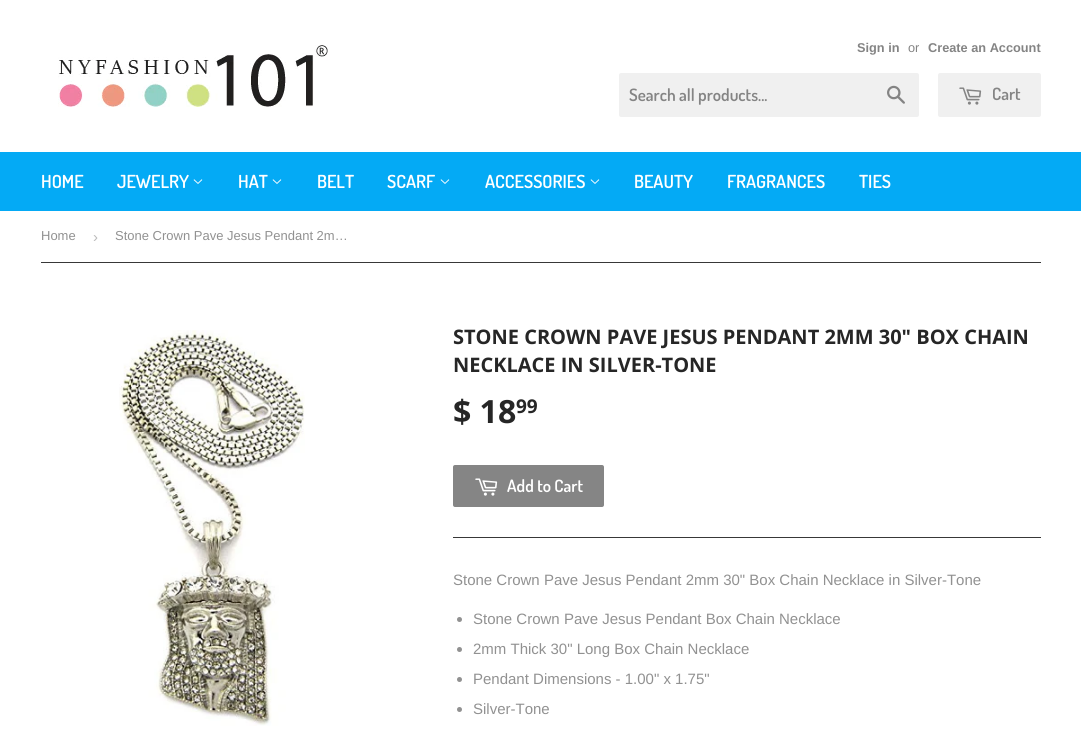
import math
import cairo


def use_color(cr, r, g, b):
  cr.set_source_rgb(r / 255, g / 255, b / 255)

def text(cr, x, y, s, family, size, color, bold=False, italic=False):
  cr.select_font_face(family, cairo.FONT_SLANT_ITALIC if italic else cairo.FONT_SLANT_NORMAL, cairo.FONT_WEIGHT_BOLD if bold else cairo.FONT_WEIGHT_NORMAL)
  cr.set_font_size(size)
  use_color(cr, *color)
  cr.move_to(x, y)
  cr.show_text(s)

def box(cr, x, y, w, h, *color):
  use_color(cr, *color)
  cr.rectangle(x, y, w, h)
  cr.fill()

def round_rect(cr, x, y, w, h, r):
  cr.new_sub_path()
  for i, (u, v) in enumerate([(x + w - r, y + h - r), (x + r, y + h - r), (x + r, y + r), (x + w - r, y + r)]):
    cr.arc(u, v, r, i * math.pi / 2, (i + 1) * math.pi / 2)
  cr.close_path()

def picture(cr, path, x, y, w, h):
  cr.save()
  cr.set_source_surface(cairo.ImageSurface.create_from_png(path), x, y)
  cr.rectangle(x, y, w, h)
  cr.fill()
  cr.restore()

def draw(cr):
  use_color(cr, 255, 255, 255)
  cr.paint()
  picture(cr, "img_01.png", 58, 45, 270, 62)
  use_color(cr, 240, 240, 240)
  round_rect(cr, 619, 73, 300, 44, 2)
  cr.fill()
  picture(cr, "img_02.png", 887, 85, 18, 19)
  round_rect(cr, 938, 73, 103, 44, 2)
  cr.fill()
  picture(cr, "img_03.png", 959, 87, 23, 18)
  box(cr, 0, 152, 1081, 59, 4, 170, 245)
  picture(cr, "img_04.png", 193, 179, 10, 5)
  picture(cr, "img_04.png", 272, 179, 10, 5)
  picture(cr, "img_04.png", 440, 179, 10, 5)
  picture(cr, "img_04.png", 590, 179, 10, 5)
  box(cr, 41, 262, 1000, 1, 56, 56, 56)
  picture(cr, "img_05.png", 119, 330, 186, 396)
  use_color(cr, 133, 133, 133)
  round_rect(cr, 453, 465, 151, 42, 2)
  cr.fill()
  picture(cr, "img_06.png", 475, 478, 23, 18)
  box(cr, 453, 537, 588, 1, 56, 56, 56)
  use_color(cr, 145, 145, 145)
  cr.arc(459.5, 619.5, 2.5, 0, 2 * math.pi)
  cr.fill()
  cr.arc(459.5, 649.5, 2.5, 0, 2 * math.pi)
  cr.fill()
  cr.arc(459.5, 679.5, 2.5, 0, 2 * math.pi)
  cr.fill()
  cr.arc(459.5, 709.5, 2.5, 0, 2 * math.pi)
  cr.fill()
  text(cr, 857, 52, "Sign in", "Liberation Sans", 12.75, (132, 132, 132), bold=True)
  text(cr, 908, 52, "or", "Liberation Sans", 12.75, (132, 132, 132))
  text(cr, 928, 52, "Create an Account", "Liberation Sans", 12.75, (132, 132, 132), bold=True)
  text(cr, 629, 101, "Search all products...", "Dosis SemiBold", 17, (132, 132, 132))
  text(cr, 992, 100, "Cart", "Dosis SemiBold", 17, (132, 132, 132))
  text(cr, 41, 188, "HOME", "Dosis SemiBold", 18, (255, 255, 255))
  text(cr, 117, 188, "JEWELRY", "Dosis SemiBold", 18, (255, 255, 255))
  text(cr, 238, 188, "HAT", "Dosis SemiBold", 18, (255, 255, 255))
  text(cr, 317, 188, "BELT", "Dosis SemiBold", 18, (255, 255, 255))
  text(cr, 387, 188, "SCARF", "Dosis SemiBold", 18, (255, 255, 255))
  text(cr, 485, 188, "ACCESSORIES", "Dosis SemiBold", 18, (255, 255, 255))
  text(cr, 634, 188, "BEAUTY", "Dosis SemiBold", 18, (255, 255, 255))
  text(cr, 727, 188, "FRAGRANCES", "Dosis SemiBold", 18, (255, 255, 255))
  text(cr, 859, 188, "TIES", "Dosis SemiBold", 18, (255, 255, 255))
  text(cr, 41, 240, "Home", "Liberation Sans", 13, (145, 145, 145))
  text(cr, 93, 242, "›", "Liberation Sans", 15, (187, 187, 187))
  text(cr, 115, 240, "Stone Crown Pave Jesus Pendant 2m…", "Liberation Sans", 13, (145, 145, 145))
  text(cr, 453, 344, "STONE CROWN PAVE JESUS PENDANT 2MM 30\" BOX CHAIN", "Open Sans", 20, (38, 38, 38), bold=True)
  text(cr, 453, 372, "NECKLACE IN SILVER-TONE", "Open Sans", 20, (38, 38, 38), bold=True)
  text(cr, 453, 423, "$ 18", "Open Sans", 32, (38, 38, 38), bold=True)
  text(cr, 516, 413, "99", "Open Sans", 19, (38, 38, 38), bold=True)
  text(cr, 507, 492, "Add to Cart", "Dosis SemiBold", 17, (255, 255, 255))
  text(cr, 453, 585, "Stone Crown Pave Jesus Pendant 2mm 30\" Box Chain Necklace in Silver-Tone", "Liberation Sans", 15, (145, 145, 145))
  text(cr, 473, 624, "Stone Crown Pave Jesus Pendant Box Chain Necklace", "Liberation Sans", 15, (145, 145, 145))
  text(cr, 473, 654, "2mm Thick 30\" Long Box Chain Necklace", "Liberation Sans", 15, (145, 145, 145))
  text(cr, 473, 684, "Pendant Dimensions - 1.00\" x 1.75\"", "Liberation Sans", 15, (145, 145, 145))
  text(cr, 473, 714, "Silver-Tone", "Liberation Sans", 15, (145, 145, 145))


surface = cairo.ImageSurface(cairo.FORMAT_RGB24, 1081, 750)
cr = cairo.Context(surface)
options = cairo.FontOptions()
options.set_hint_metrics(cairo.HINT_METRICS_OFF)
options.set_hint_style(cairo.HINT_STYLE_NONE)
cr.set_font_options(options)
cr.set_miter_limit(4)
draw(cr)
surface.write_to_png("out.png")
